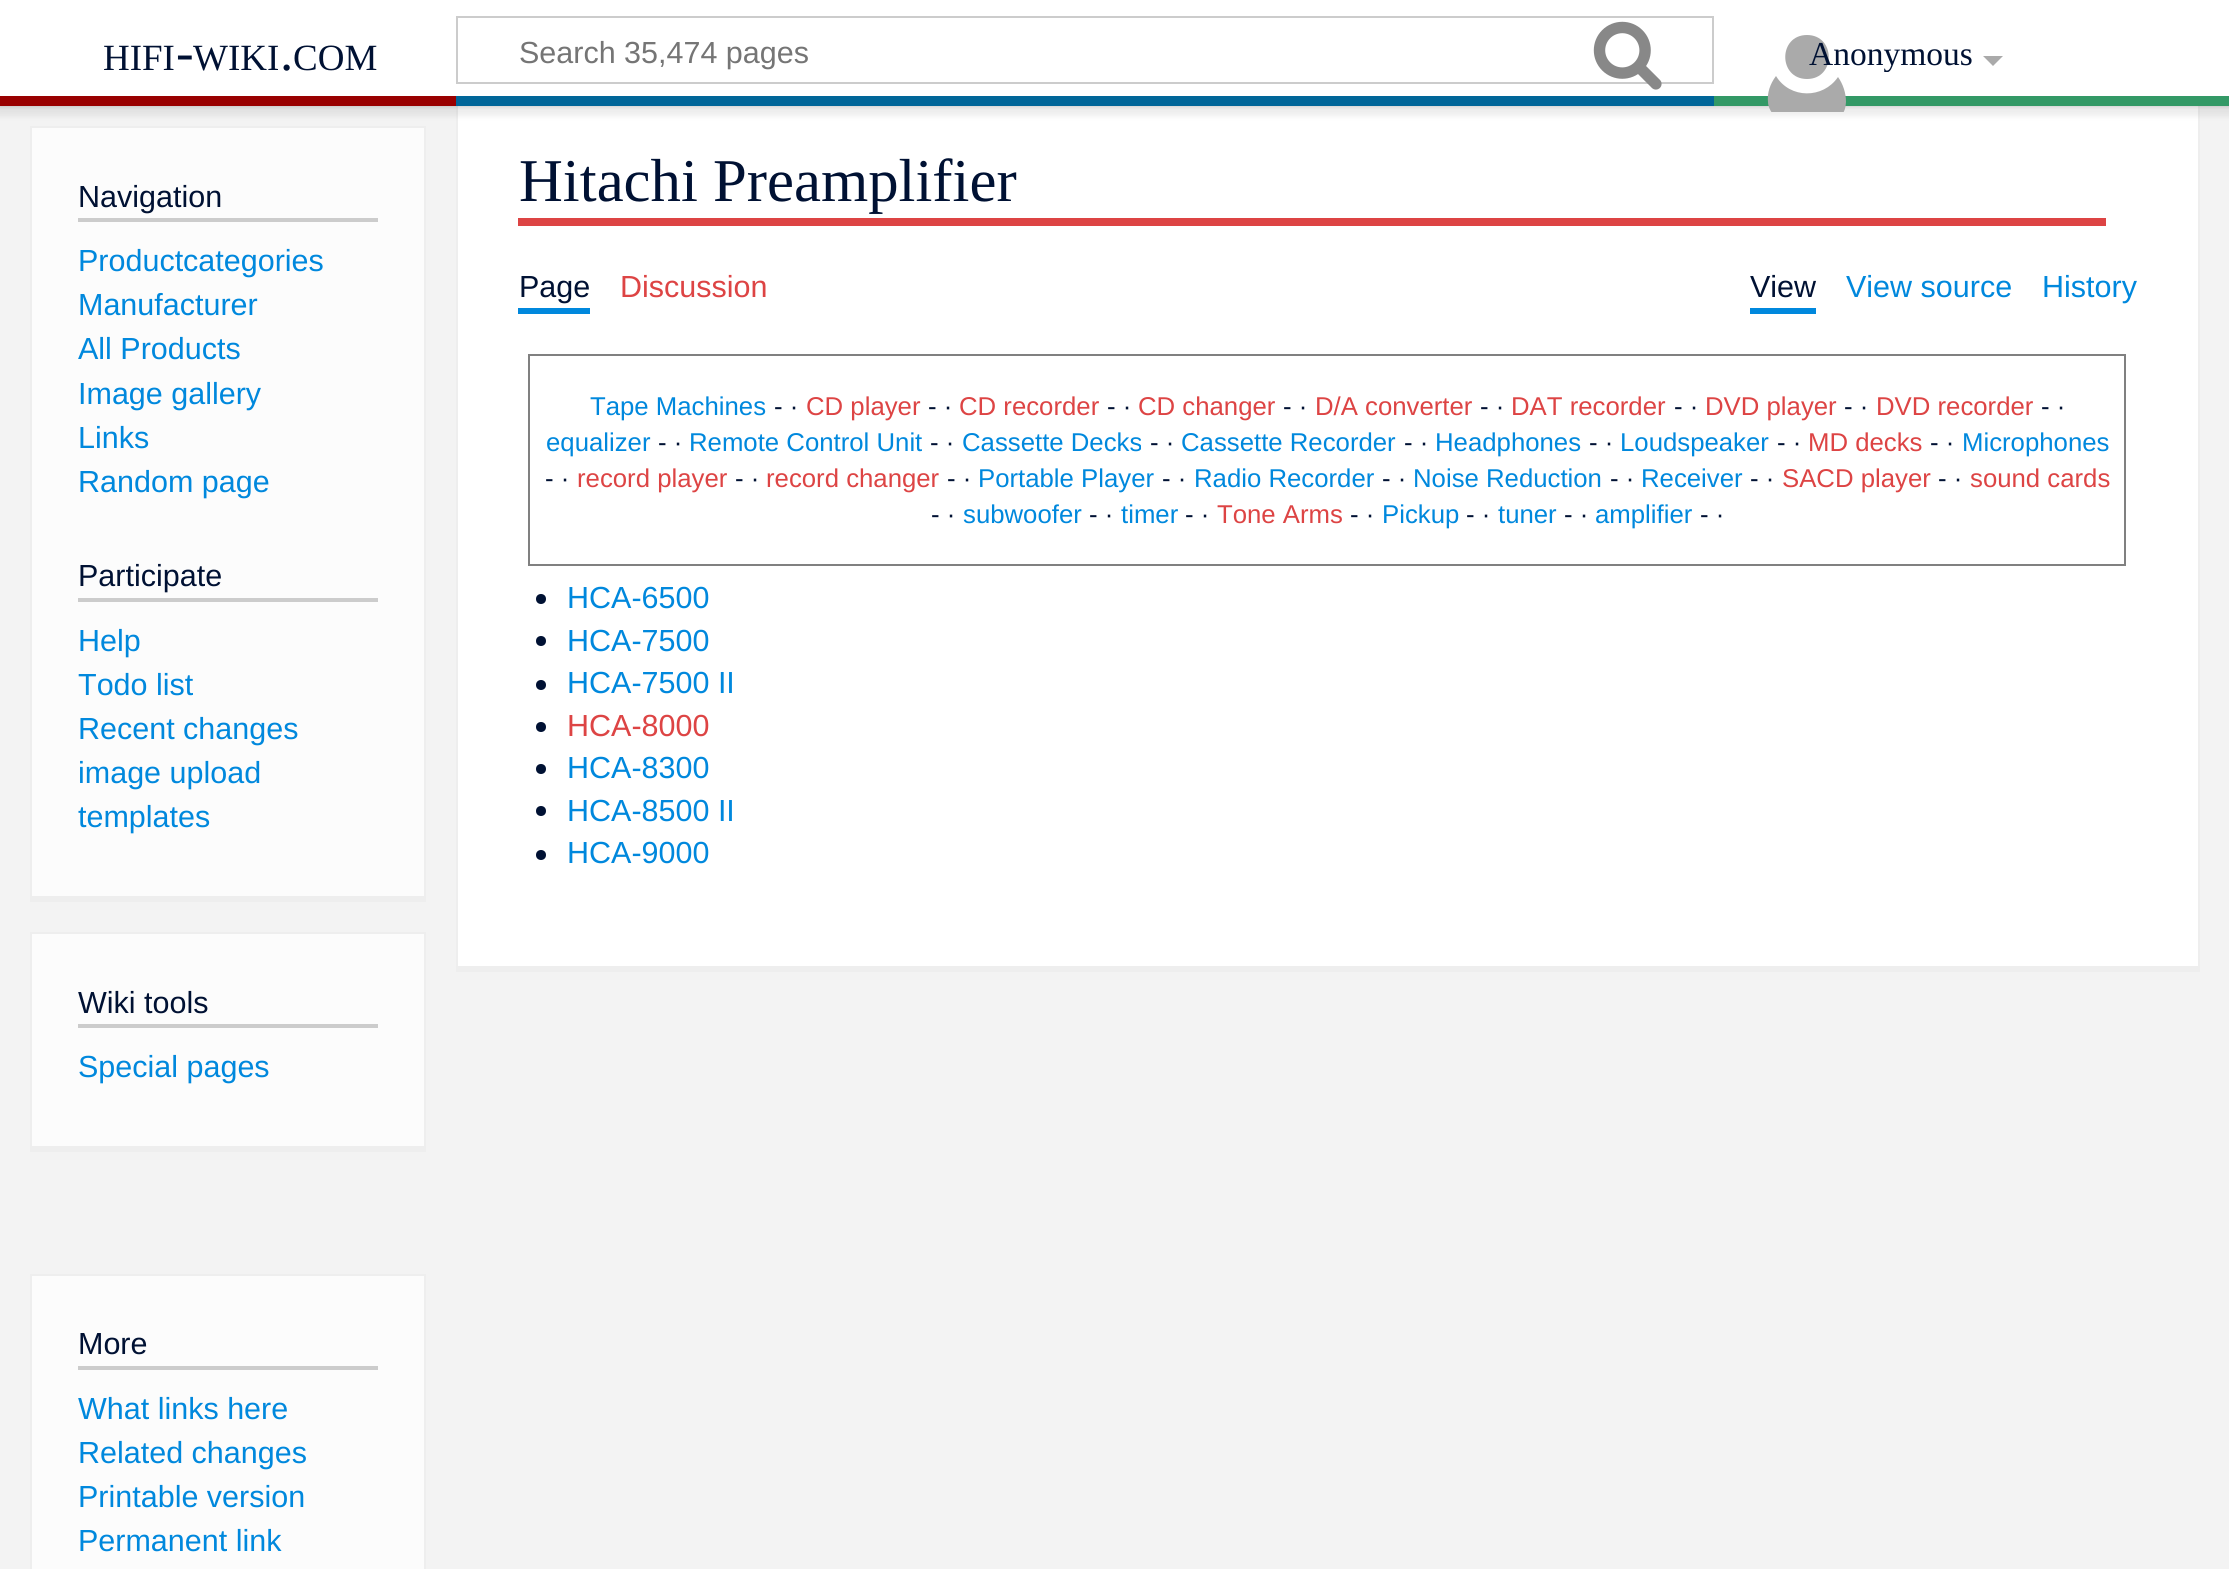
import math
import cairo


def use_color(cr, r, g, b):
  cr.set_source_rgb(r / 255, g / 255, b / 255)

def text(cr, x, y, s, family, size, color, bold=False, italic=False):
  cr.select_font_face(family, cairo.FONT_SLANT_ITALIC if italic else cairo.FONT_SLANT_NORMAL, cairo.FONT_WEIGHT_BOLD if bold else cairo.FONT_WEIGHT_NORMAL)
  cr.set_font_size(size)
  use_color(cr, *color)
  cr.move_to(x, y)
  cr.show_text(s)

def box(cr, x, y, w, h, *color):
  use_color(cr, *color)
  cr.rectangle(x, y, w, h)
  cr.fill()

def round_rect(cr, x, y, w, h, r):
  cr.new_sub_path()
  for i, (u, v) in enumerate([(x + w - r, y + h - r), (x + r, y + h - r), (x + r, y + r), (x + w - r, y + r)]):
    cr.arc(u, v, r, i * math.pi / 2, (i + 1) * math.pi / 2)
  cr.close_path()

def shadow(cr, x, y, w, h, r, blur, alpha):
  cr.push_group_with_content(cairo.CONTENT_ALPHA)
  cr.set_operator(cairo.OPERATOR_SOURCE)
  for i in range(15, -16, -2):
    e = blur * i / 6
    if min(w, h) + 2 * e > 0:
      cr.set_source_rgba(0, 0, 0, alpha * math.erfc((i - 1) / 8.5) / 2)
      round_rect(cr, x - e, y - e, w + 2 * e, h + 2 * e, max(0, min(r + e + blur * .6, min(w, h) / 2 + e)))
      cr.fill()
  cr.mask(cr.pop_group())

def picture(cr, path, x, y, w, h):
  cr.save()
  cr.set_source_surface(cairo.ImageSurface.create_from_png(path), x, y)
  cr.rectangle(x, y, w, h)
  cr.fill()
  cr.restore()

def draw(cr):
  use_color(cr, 243, 243, 243)
  cr.paint()
  box(cr, 458, 106, 1740, 860, 255, 255, 255)
  box(cr, 2198, 106, 2, 866, 238, 238, 238)
  box(cr, 456, 966, 1744, 6, 238, 238, 238)
  box(cr, 456, 106, 2, 866, 238, 238, 238)
  use_color(cr, 0, 0, 0)
  shadow(cr, 0, 96, 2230, 10, 0, 2, 0.2)
  shadow(cr, -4, 98, 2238, 18, 0, 3, 0.07)
  box(cr, 0, 0, 2229, 96, 255, 255, 255)
  cr.rectangle(457, 17, 1256, 66)
  use_color(cr, 204, 204, 204)
  cr.stroke()
  picture(cr, "img_01.png", 1593, 21, 69, 69)
  box(cr, 1714, 96, 515, 10, 51, 153, 102)
  cr.save()
  cr.rectangle(1758, 30, 98, 82)
  cr.clip()
  use_color(cr, 170, 170, 170)
  cr.new_path()
  cr.move_to(1776, 76)
  cr.curve_to(1770, 84, 1767, 93, 1768, 102)
  cr.curve_to(1768, 106, 1770, 110, 1772, 113)
  cr.curve_to(1779, 125, 1795, 123, 1808, 123)
  cr.curve_to(1824, 123, 1845, 125, 1846, 102)
  cr.curve_to(1846, 93, 1843, 84, 1838, 77)
  cr.curve_to(1823, 99, 1790, 99, 1776, 76)
  cr.close_path()
  cr.fill()
  cr.restore()
  use_color(cr, 170, 170, 170)
  cr.set_fill_rule(cairo.FILL_RULE_EVEN_ODD)
  cr.new_path()
  cr.move_to(1807, 35)
  cr.curve_to(1778, 35, 1778, 79, 1807, 79)
  cr.curve_to(1836, 79, 1836, 35, 1807, 35)
  cr.close_path()
  cr.fill()
  cr.set_fill_rule(cairo.FILL_RULE_WINDING)
  cr.new_path()
  cr.move_to(2003, 56)
  cr.line_to(1993, 66)
  cr.line_to(1983, 56)
  cr.close_path()
  cr.fill()
  box(cr, 0, 96, 456, 10, 153, 0, 0)
  box(cr, 456, 96, 1258, 10, 0, 102, 153)
  box(cr, 32, 128, 392, 768, 252, 252, 252)
  box(cr, 30, 126, 396, 2, 238, 238, 238)
  box(cr, 424, 126, 2, 776, 238, 238, 238)
  box(cr, 30, 896, 396, 6, 238, 238, 238)
  box(cr, 30, 126, 2, 776, 238, 238, 238)
  box(cr, 78, 218, 300, 4, 204, 204, 204)
  box(cr, 78, 598, 300, 4, 204, 204, 204)
  box(cr, 32, 934, 392, 212, 252, 252, 252)
  box(cr, 30, 932, 396, 2, 238, 238, 238)
  box(cr, 424, 932, 2, 220, 238, 238, 238)
  box(cr, 30, 1146, 396, 6, 238, 238, 238)
  box(cr, 30, 932, 2, 220, 238, 238, 238)
  box(cr, 78, 1024, 300, 4, 204, 204, 204)
  box(cr, 518, 218, 1588, 8, 221, 68, 68)
  box(cr, 518, 308, 72, 6, 0, 136, 221)
  box(cr, 1750, 308, 66, 6, 0, 136, 221)
  cr.rectangle(529, 355, 1596, 210)
  use_color(cr, 128, 128, 128)
  cr.stroke()
  use_color(cr, 0, 17, 51)
  cr.arc(541, 599, 5, 0, 2 * math.pi)
  cr.fill()
  cr.arc(541, 641, 5, 0, 2 * math.pi)
  cr.fill()
  cr.arc(541, 685, 5, 0, 2 * math.pi)
  cr.fill()
  cr.arc(541, 727, 5, 0, 2 * math.pi)
  cr.fill()
  cr.arc(541, 769, 5, 0, 2 * math.pi)
  cr.fill()
  cr.arc(541, 811, 5, 0, 2 * math.pi)
  cr.fill()
  cr.arc(541, 855, 5, 0, 2 * math.pi)
  cr.fill()
  box(cr, 32, 1276, 392, 293, 252, 252, 252)
  box(cr, 30, 1274, 396, 2, 238, 238, 238)
  box(cr, 424, 1274, 2, 295, 238, 238, 238)
  box(cr, 30, 1274, 2, 295, 238, 238, 238)
  box(cr, 78, 1366, 300, 4, 204, 204, 204)
  text(cr, 103, 70, "HIFI", "Liberation Serif", 37, (0, 17, 51))
  text(cr, 176, 70, "-", "Liberation Serif", 53, (0, 17, 51))
  text(cr, 193, 70, "WIKI", "Liberation Serif", 37, (0, 17, 51))
  text(cr, 293, 70, "COM", "Liberation Serif", 37, (0, 17, 51))
  text(cr, 280, 70, ".", "Liberation Serif", 53, (0, 17, 51))
  text(cr, 519, 63, "Search 35,474 pages", "Liberation Sans", 30.5, (117, 117, 117))
  cr.save()
  cr.rectangle(1808, 38, 164, 34)
  cr.clip()
  text(cr, 1809, 65, "Anonymous", "Liberation Serif", 33.5, (0, 17, 51))
  cr.restore()
  text(cr, 78, 207, "Navigation", "Liberation Sans", 30.5, (0, 17, 51))
  text(cr, 78, 271, "Productcategories", "Liberation Sans", 30.5, (0, 136, 221))
  text(cr, 78, 315, "Manufacturer", "Liberation Sans", 30.5, (0, 136, 221))
  text(cr, 78, 359, "All Products", "Liberation Sans", 30.5, (0, 136, 221))
  text(cr, 78, 404, "Image gallery", "Liberation Sans", 30.5, (0, 136, 221))
  text(cr, 78, 448, "Links", "Liberation Sans", 30.5, (0, 136, 221))
  text(cr, 78, 492, "Random page", "Liberation Sans", 30.5, (0, 136, 221))
  text(cr, 78, 586, "Participate", "Liberation Sans", 30.5, (0, 17, 51))
  text(cr, 78, 651, "Help", "Liberation Sans", 30.5, (0, 136, 221))
  text(cr, 78, 695, "Todo list", "Liberation Sans", 30.5, (0, 136, 221))
  text(cr, 78, 739, "Recent changes", "Liberation Sans", 30.5, (0, 136, 221))
  text(cr, 78, 783, "image upload", "Liberation Sans", 30.5, (0, 136, 221))
  text(cr, 78, 827, "templates", "Liberation Sans", 30.5, (0, 136, 221))
  text(cr, 78, 1013, "Wiki tools", "Liberation Sans", 30.5, (0, 17, 51))
  text(cr, 78, 1077, "Special pages", "Liberation Sans", 30.5, (0, 136, 221))
  text(cr, 519, 201, "Hitachi Preamplifier", "Liberation Serif", 60.75, (0, 17, 51))
  text(cr, 519, 297, "Page", "Liberation Sans", 30.5, (0, 17, 51))
  text(cr, 620, 297, "Discussion", "Liberation Sans", 30.5, (221, 68, 68))
  text(cr, 1750, 297, "View", "Liberation Sans", 30.5, (0, 17, 51))
  text(cr, 1846, 297, "View source", "Liberation Sans", 30.5, (0, 136, 221))
  text(cr, 2042, 297, "History", "Liberation Sans", 30.5, (0, 136, 221))
  text(cr, 590, 415, "Tape Machines", "Liberation Sans", 25.75, (0, 136, 221))
  text(cr, 774, 415, "- ·", "Liberation Sans", 25.75, (0, 17, 51))
  text(cr, 806, 415, "CD player", "Liberation Sans", 25.75, (221, 68, 68))
  text(cr, 928, 415, "- ·", "Liberation Sans", 25.75, (0, 17, 51))
  text(cr, 959, 415, "CD recorder", "Liberation Sans", 25.75, (221, 68, 68))
  text(cr, 1107, 415, "- ·", "Liberation Sans", 25.75, (0, 17, 51))
  text(cr, 1138, 415, "CD changer", "Liberation Sans", 25.75, (221, 68, 68))
  text(cr, 1283, 415, "- ·", "Liberation Sans", 25.75, (0, 17, 51))
  text(cr, 1315, 415, "D/A converter", "Liberation Sans", 25.75, (221, 68, 68))
  text(cr, 1480, 415, "- ·", "Liberation Sans", 25.75, (0, 17, 51))
  text(cr, 1511, 415, "DAT recorder", "Liberation Sans", 25.75, (221, 68, 68))
  text(cr, 1674, 415, "- ·", "Liberation Sans", 25.75, (0, 17, 51))
  text(cr, 1705, 415, "DVD player", "Liberation Sans", 25.75, (221, 68, 68))
  text(cr, 1844, 415, "- ·", "Liberation Sans", 25.75, (0, 17, 51))
  text(cr, 1876, 415, "DVD recorder", "Liberation Sans", 25.75, (221, 68, 68))
  text(cr, 2041, 415, "- ·", "Liberation Sans", 25.75, (0, 17, 51))
  text(cr, 546, 451, "equalizer", "Liberation Sans", 25.75, (0, 136, 221))
  text(cr, 658, 451, "- ·", "Liberation Sans", 25.75, (0, 17, 51))
  text(cr, 689, 451, "Remote Control Unit", "Liberation Sans", 25.75, (0, 136, 221))
  text(cr, 930, 451, "- ·", "Liberation Sans", 25.75, (0, 17, 51))
  text(cr, 962, 451, "Cassette Decks", "Liberation Sans", 25.75, (0, 136, 221))
  text(cr, 1150, 451, "- ·", "Liberation Sans", 25.75, (0, 17, 51))
  text(cr, 1181, 451, "Cassette Recorder", "Liberation Sans", 25.75, (0, 136, 221))
  text(cr, 1404, 451, "- ·", "Liberation Sans", 25.75, (0, 17, 51))
  text(cr, 1435, 451, "Headphones", "Liberation Sans", 25.75, (0, 136, 221))
  text(cr, 1589, 451, "- ·", "Liberation Sans", 25.75, (0, 17, 51))
  text(cr, 1620, 451, "Loudspeaker", "Liberation Sans", 25.75, (0, 136, 221))
  text(cr, 1777, 451, "- ·", "Liberation Sans", 25.75, (0, 17, 51))
  text(cr, 1808, 451, "MD decks", "Liberation Sans", 25.75, (221, 68, 68))
  text(cr, 1930, 451, "- ·", "Liberation Sans", 25.75, (0, 17, 51))
  text(cr, 1962, 451, "Microphones", "Liberation Sans", 25.75, (0, 136, 221))
  text(cr, 545, 487, "- ·", "Liberation Sans", 25.75, (0, 17, 51))
  text(cr, 577, 487, "record player", "Liberation Sans", 25.75, (221, 68, 68))
  text(cr, 735, 487, "- ·", "Liberation Sans", 25.75, (0, 17, 51))
  text(cr, 766, 487, "record changer", "Liberation Sans", 25.75, (221, 68, 68))
  text(cr, 947, 487, "- ·", "Liberation Sans", 25.75, (0, 17, 51))
  text(cr, 978, 487, "Portable Player", "Liberation Sans", 25.75, (0, 136, 221))
  text(cr, 1162, 487, "- ·", "Liberation Sans", 25.75, (0, 17, 51))
  text(cr, 1194, 487, "Radio Recorder", "Liberation Sans", 25.75, (0, 136, 221))
  text(cr, 1382, 487, "- ·", "Liberation Sans", 25.75, (0, 17, 51))
  text(cr, 1413, 487, "Noise Reduction", "Liberation Sans", 25.75, (0, 136, 221))
  text(cr, 1610, 487, "- ·", "Liberation Sans", 25.75, (0, 17, 51))
  text(cr, 1641, 487, "Receiver", "Liberation Sans", 25.75, (0, 136, 221))
  text(cr, 1750, 487, "- ·", "Liberation Sans", 25.75, (0, 17, 51))
  text(cr, 1782, 487, "SACD player", "Liberation Sans", 25.75, (221, 68, 68))
  text(cr, 1938, 487, "- ·", "Liberation Sans", 25.75, (0, 17, 51))
  text(cr, 1970, 487, "sound cards", "Liberation Sans", 25.75, (221, 68, 68))
  text(cr, 931, 523, "- ·", "Liberation Sans", 25.75, (0, 17, 51))
  text(cr, 963, 523, "subwoofer", "Liberation Sans", 25.75, (0, 136, 221))
  text(cr, 1089, 523, "- ·", "Liberation Sans", 25.75, (0, 17, 51))
  text(cr, 1121, 523, "timer", "Liberation Sans", 25.75, (0, 136, 221))
  text(cr, 1185, 523, "- ·", "Liberation Sans", 25.75, (0, 17, 51))
  text(cr, 1217, 523, "Tone Arms", "Liberation Sans", 25.75, (221, 68, 68))
  text(cr, 1350, 523, "- ·", "Liberation Sans", 25.75, (0, 17, 51))
  text(cr, 1382, 523, "Pickup", "Liberation Sans", 25.75, (0, 136, 221))
  text(cr, 1466, 523, "- ·", "Liberation Sans", 25.75, (0, 17, 51))
  text(cr, 1498, 523, "tuner", "Liberation Sans", 25.75, (0, 136, 221))
  text(cr, 1564, 523, "- ·", "Liberation Sans", 25.75, (0, 17, 51))
  text(cr, 1595, 523, "amplifier", "Liberation Sans", 25.75, (0, 136, 221))
  text(cr, 1700, 523, "- ·", "Liberation Sans", 25.75, (0, 17, 51))
  text(cr, 567, 608, "HCA-6500", "Liberation Sans", 30.5, (0, 136, 221))
  text(cr, 567, 651, "HCA-7500", "Liberation Sans", 30.5, (0, 136, 221))
  text(cr, 567, 693, "HCA-7500 II", "Liberation Sans", 30.5, (0, 136, 221))
  text(cr, 567, 736, "HCA-8000", "Liberation Sans", 30.5, (221, 68, 68))
  text(cr, 567, 778, "HCA-8300", "Liberation Sans", 30.5, (0, 136, 221))
  text(cr, 567, 821, "HCA-8500 II", "Liberation Sans", 30.5, (0, 136, 221))
  text(cr, 567, 863, "HCA-9000", "Liberation Sans", 30.5, (0, 136, 221))
  text(cr, 78, 1354, "More", "Liberation Sans", 30.5, (0, 17, 51))
  text(cr, 78, 1419, "What links here", "Liberation Sans", 30.5, (0, 136, 221))
  text(cr, 78, 1463, "Related changes", "Liberation Sans", 30.5, (0, 136, 221))
  text(cr, 78, 1507, "Printable version", "Liberation Sans", 30.5, (0, 136, 221))
  text(cr, 78, 1551, "Permanent link", "Liberation Sans", 30.5, (0, 136, 221))


surface = cairo.ImageSurface(cairo.FORMAT_RGB24, 2229, 1569)
cr = cairo.Context(surface)
options = cairo.FontOptions()
options.set_hint_metrics(cairo.HINT_METRICS_OFF)
options.set_hint_style(cairo.HINT_STYLE_NONE)
cr.set_font_options(options)
cr.set_miter_limit(4)
draw(cr)
surface.write_to_png("out.png")
